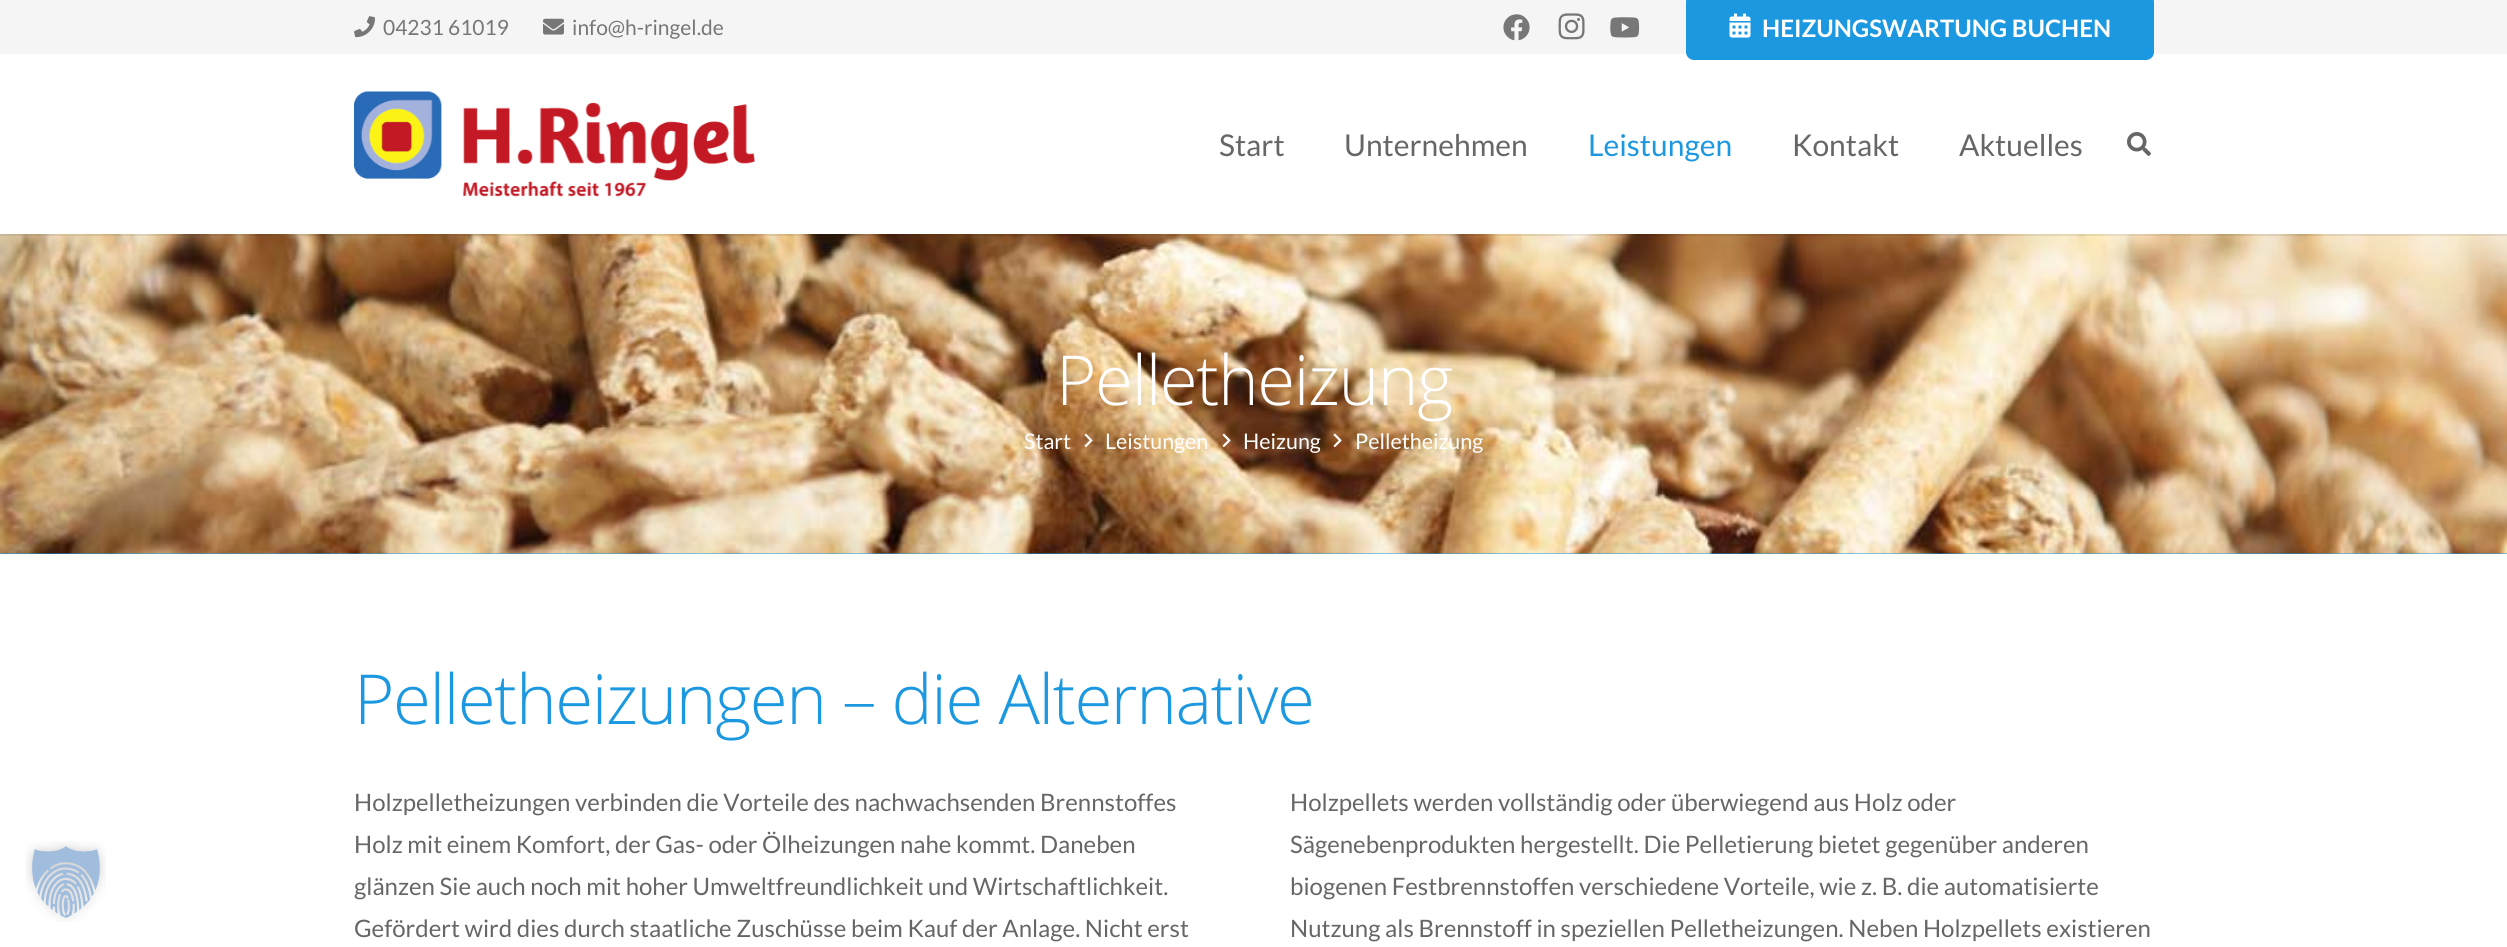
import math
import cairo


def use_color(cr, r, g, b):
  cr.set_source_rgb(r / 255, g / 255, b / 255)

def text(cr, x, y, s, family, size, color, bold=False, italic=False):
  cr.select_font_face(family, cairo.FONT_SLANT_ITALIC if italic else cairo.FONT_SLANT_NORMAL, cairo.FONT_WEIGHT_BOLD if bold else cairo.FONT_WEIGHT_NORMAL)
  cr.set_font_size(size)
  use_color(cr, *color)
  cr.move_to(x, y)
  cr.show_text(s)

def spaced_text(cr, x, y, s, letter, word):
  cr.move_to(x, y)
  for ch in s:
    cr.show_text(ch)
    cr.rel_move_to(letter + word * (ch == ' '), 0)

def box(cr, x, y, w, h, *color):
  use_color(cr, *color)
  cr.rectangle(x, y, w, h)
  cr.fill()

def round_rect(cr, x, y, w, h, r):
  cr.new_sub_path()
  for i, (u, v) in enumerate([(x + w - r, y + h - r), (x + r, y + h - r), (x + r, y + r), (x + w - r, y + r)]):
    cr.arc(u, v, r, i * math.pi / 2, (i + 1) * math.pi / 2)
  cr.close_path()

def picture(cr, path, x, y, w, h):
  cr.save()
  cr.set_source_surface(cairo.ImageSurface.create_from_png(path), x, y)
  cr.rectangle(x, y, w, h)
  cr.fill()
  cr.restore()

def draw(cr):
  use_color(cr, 255, 255, 255)
  cr.paint()
  picture(cr, "img_01.png", 25, 841, 81, 81)
  box(cr, 0, 0, 2507, 54, 245, 245, 245)
  picture(cr, "img_02.png", 354, 16, 21, 22)
  picture(cr, "img_03.png", 543, 18, 21, 17)
  picture(cr, "img_04.png", 1503, 14, 27, 27)
  picture(cr, "img_05.png", 1558, 13, 27, 27)
  picture(cr, "img_06.png", 1610, 17, 30, 21)
  use_color(cr, 27, 152, 224)
  round_rect(cr, 1686, -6, 468, 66, 8)
  cr.fill()
  picture(cr, "img_07.png", 1729, 13, 22, 25)
  box(cr, 0, 553, 2507, 1, 27, 152, 224)
  picture(cr, "img_10.png", 0, 234, 2507, 320)
  cr.set_source_rgba(0, 0, 0, 0.08)
  cr.rectangle(0, 234, 2507, 2)
  cr.fill()
  picture(cr, "img_08.png", 354, 91, 401, 106)
  picture(cr, "img_09.png", 2127, 132, 24, 24)
  picture(cr, "img_11.png", 1084, 433, 9, 15)
  picture(cr, "img_12.png", 1222, 433, 9, 15)
  picture(cr, "img_13.png", 1333, 433, 9, 15)
  text(cr, 383, 35, "04231 61019", "Lato", 21, (119, 119, 119))
  text(cr, 572, 35, "info@h-ringel.de", "Lato", 21, (119, 119, 119))
  text(cr, 1762, 37, "HEIZUNGSWARTUNG BUCHEN", "Lato", 24, (255, 255, 255), bold=True)
  text(cr, 1219, 156, "Start", "Lato", 30, (102, 102, 102))
  text(cr, 1344, 156, "Unternehmen", "Lato", 30, (102, 102, 102))
  text(cr, 1588, 156, "Leistungen", "Lato", 30, (27, 152, 224))
  text(cr, 1792, 156, "Kontakt", "Lato", 30, (102, 102, 102))
  text(cr, 1959, 156, "Aktuelles", "Lato", 30, (102, 102, 102))
  cr.select_font_face("Open Sans Light")
  cr.set_font_size(69)
  use_color(cr, 255, 255, 255)
  spaced_text(cr, 1056, 405, "Pelletheizung", -1.4, 0)
  text(cr, 1024, 449, "Start", "Lato", 21.5, (255, 255, 255))
  text(cr, 1105, 449, "Leistungen", "Lato", 21.5, (255, 255, 255))
  text(cr, 1243, 449, "Heizung", "Lato", 21.5, (255, 255, 255))
  text(cr, 1355, 449, "Pelletheizung", "Lato", 21.5, (255, 255, 255))
  cr.select_font_face("Open Sans Light")
  cr.set_font_size(69)
  use_color(cr, 27, 152, 224)
  spaced_text(cr, 354, 724, "Pelletheizungen – die Alternative", -1.4, 0)
  text(cr, 354, 811, "Holzpelletheizungen verbinden die Vorteile des nachwachsenden Brennstoffes", "Lato", 24, (102, 102, 102))
  text(cr, 354, 853, "Holz mit einem Komfort, der Gas- oder Ölheizungen nahe kommt. Daneben", "Lato", 24, (102, 102, 102))
  text(cr, 354, 895, "glänzen Sie auch noch mit hoher Umweltfreundlichkeit und Wirtschaftlichkeit.", "Lato", 24, (102, 102, 102))
  text(cr, 354, 937, "Gefördert wird dies durch staatliche Zuschüsse beim Kauf der Anlage. Nicht erst", "Lato", 24, (102, 102, 102))
  text(cr, 1290, 811, "Holzpellets werden vollständig oder überwiegend aus Holz oder", "Lato", 24, (102, 102, 102))
  text(cr, 1290, 853, "Sägenebenprodukten hergestellt. Die Pelletierung bietet gegenüber anderen", "Lato", 24, (102, 102, 102))
  text(cr, 1290, 895, "biogenen Festbrennstoffen verschiedene Vorteile, wie z. B. die automatisierte", "Lato", 24, (102, 102, 102))
  text(cr, 1290, 937, "Nutzung als Brennstoff in speziellen Pelletheizungen. Neben Holzpellets existieren", "Lato", 24, (102, 102, 102))


surface = cairo.ImageSurface(cairo.FORMAT_RGB24, 2507, 947)
cr = cairo.Context(surface)
options = cairo.FontOptions()
options.set_hint_metrics(cairo.HINT_METRICS_OFF)
options.set_hint_style(cairo.HINT_STYLE_NONE)
cr.set_font_options(options)
cr.set_miter_limit(4)
draw(cr)
surface.write_to_png("out.png")
